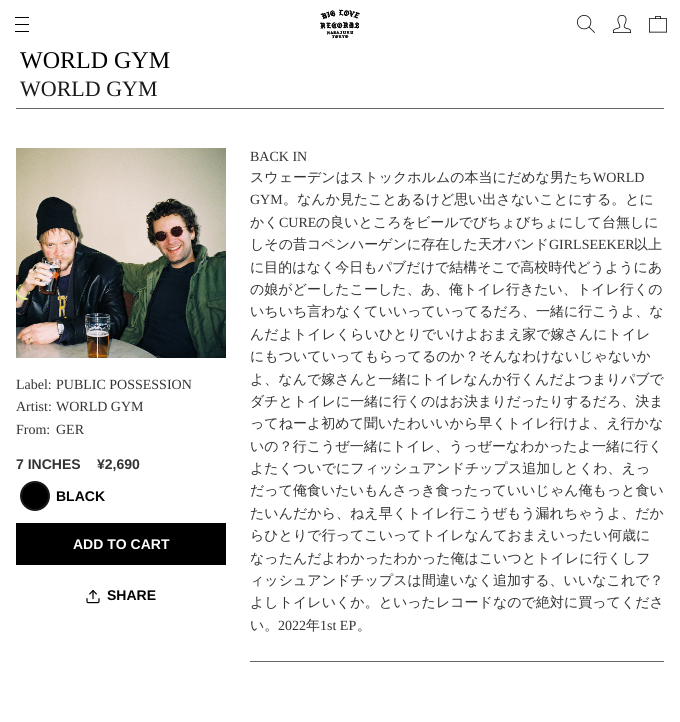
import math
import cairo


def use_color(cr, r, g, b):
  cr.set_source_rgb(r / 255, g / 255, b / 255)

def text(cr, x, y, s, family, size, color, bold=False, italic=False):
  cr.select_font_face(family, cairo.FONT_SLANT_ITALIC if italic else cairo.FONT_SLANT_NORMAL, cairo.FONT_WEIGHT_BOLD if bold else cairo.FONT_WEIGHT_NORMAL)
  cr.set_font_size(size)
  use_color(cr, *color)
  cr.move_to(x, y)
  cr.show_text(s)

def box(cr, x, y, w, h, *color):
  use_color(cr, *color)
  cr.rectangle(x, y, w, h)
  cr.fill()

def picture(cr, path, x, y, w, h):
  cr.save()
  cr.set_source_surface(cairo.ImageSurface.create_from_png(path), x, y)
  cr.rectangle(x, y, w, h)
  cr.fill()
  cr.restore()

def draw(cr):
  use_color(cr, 255, 255, 255)
  cr.paint()
  picture(cr, "img_01.png", 15, 17, 14, 15)
  picture(cr, "img_02.png", 320, 9, 40, 30)
  picture(cr, "img_03.png", 577, 15, 18, 18)
  picture(cr, "img_04.png", 613, 15, 18, 18)
  picture(cr, "img_05.png", 649, 16, 18, 17)
  box(cr, 16, 108, 648, 1, 102, 102, 102)
  picture(cr, "img_06.png", 16, 148, 210, 210)
  use_color(cr, 0, 0, 0)
  cr.arc(35, 496, 14, 0, 2 * math.pi)
  cr.fill_preserve()
  use_color(cr, 26, 25, 25)
  cr.stroke()
  box(cr, 16, 523, 210, 42, 0, 0, 0)
  picture(cr, "img_07.png", 86, 590, 14, 14)
  box(cr, 250, 661, 414, 1, 102, 102, 102)
  text(cr, 20, 68, "WORLD GYM", "Liberation Serif", 24, (0, 0, 0))
  text(cr, 20, 96, "WORLD GYM", "Liberation Serif", 22, (26, 25, 25))
  text(cr, 16, 389, "Label:", "Liberation Serif", 14, (51, 51, 51))
  text(cr, 56, 389, "PUBLIC POSSESSION", "Liberation Serif", 14, (51, 51, 51))
  text(cr, 16, 411, "Artist:", "Liberation Serif", 14, (51, 51, 51))
  text(cr, 56, 411, "WORLD GYM", "Liberation Serif", 14, (51, 51, 51))
  text(cr, 16, 434, "From:", "Liberation Serif", 14, (51, 51, 51))
  text(cr, 56, 434, "GER", "Liberation Serif", 14, (51, 51, 51))
  text(cr, 16, 469, "7 INCHES", "Liberation Sans", 14, (51, 51, 51), bold=True)
  text(cr, 97, 469, "¥2,690", "Liberation Sans", 14, (51, 51, 51), bold=True)
  text(cr, 56, 501, "BLACK", "Liberation Sans", 14, (0, 0, 0), bold=True)
  text(cr, 73, 549, "ADD TO CART", "Liberation Sans", 14, (255, 255, 255), bold=True)
  text(cr, 107, 600, "SHARE", "Liberation Sans", 14, (0, 0, 0), bold=True)
  text(cr, 250, 161, "BACK IN", "Liberation Serif", 14, (51, 51, 51))
  text(cr, 250, 182, "スウェーデンはストックホルムの本当にだめな男たち", "WenQuanYi Zen Hei Medium", 14, (51, 51, 51))
  text(cr, 593, 182, "WORLD", "Liberation Serif", 14, (51, 51, 51))
  text(cr, 250, 204, "GYM", "Liberation Serif", 14, (51, 51, 51))
  text(cr, 283, 204, "。なんか見たことあるけど思い出さないことにする。とに", "WenQuanYi Zen Hei Medium", 14, (51, 51, 51))
  text(cr, 250, 227, "かく", "WenQuanYi Zen Hei Medium", 14, (51, 51, 51))
  text(cr, 279, 227, "CURE", "Liberation Serif", 14, (51, 51, 51))
  text(cr, 316, 227, "の良いところをビールでびちょびちょにして台無しに", "WenQuanYi Zen Hei Medium", 14, (51, 51, 51))
  text(cr, 250, 249, "しその昔コペンハーゲンに存在した天才バンド", "WenQuanYi Zen Hei Medium", 14, (51, 51, 51))
  text(cr, 549, 249, "GIRLSEEKER", "Liberation Serif", 14, (51, 51, 51))
  text(cr, 634, 249, "以上", "WenQuanYi Zen Hei Medium", 14, (51, 51, 51))
  text(cr, 250, 272, "に目的はなく今日もパブだけで結構そこで高校時代どうようにあ", "WenQuanYi Zen Hei Medium", 14, (51, 51, 51))
  text(cr, 250, 294, "の娘がどーしたこーした、あ、俺トイレ行きたい、トイレ行くの", "WenQuanYi Zen Hei Medium", 14, (51, 51, 51))
  text(cr, 250, 316, "いちいち言わなくていいっていってるだろ、一緒に行こうよ、な", "WenQuanYi Zen Hei Medium", 14, (51, 51, 51))
  text(cr, 250, 339, "んだよトイレくらいひとりでいけよおまえ家で嫁さんにトイレ", "WenQuanYi Zen Hei Medium", 14, (51, 51, 51))
  text(cr, 250, 361, "にもついていってもらってるのか？そんなわけないじゃないか", "WenQuanYi Zen Hei Medium", 14, (51, 51, 51))
  text(cr, 250, 384, "よ、なんで嫁さんと一緒にトイレなんか行くんだよつまりパブで", "WenQuanYi Zen Hei Medium", 14, (51, 51, 51))
  text(cr, 250, 406, "ダチとトイレに一緒に行くのはお決まりだったりするだろ、決ま", "WenQuanYi Zen Hei Medium", 14, (51, 51, 51))
  text(cr, 250, 428, "ってねーよ初めて聞いたわいいから早くトイレ行けよ、え行かな", "WenQuanYi Zen Hei Medium", 14, (51, 51, 51))
  text(cr, 250, 451, "いの？行こうぜ一緒にトイレ、うっぜーなわかったよ一緒に行く", "WenQuanYi Zen Hei Medium", 14, (51, 51, 51))
  text(cr, 250, 473, "よたくついでにフィッシュアンドチップス追加しとくわ、えっ", "WenQuanYi Zen Hei Medium", 14, (51, 51, 51))
  text(cr, 250, 495, "だって俺食いたいもんさっき食ったっていいじゃん俺もっと食い", "WenQuanYi Zen Hei Medium", 14, (51, 51, 51))
  text(cr, 250, 518, "たいんだから、ねえ早くトイレ行こうぜもう漏れちゃうよ、だか", "WenQuanYi Zen Hei Medium", 14, (51, 51, 51))
  text(cr, 250, 540, "らひとりで行ってこいってトイレなんておまえいったい何歳に", "WenQuanYi Zen Hei Medium", 14, (51, 51, 51))
  text(cr, 250, 563, "なったんだよわかったわかった俺はこいつとトイレに行くしフ", "WenQuanYi Zen Hei Medium", 14, (51, 51, 51))
  text(cr, 250, 585, "ィッシュアンドチップスは間違いなく追加する、いいなこれで？", "WenQuanYi Zen Hei Medium", 14, (51, 51, 51))
  text(cr, 250, 607, "よしトイレいくか。といったレコードなので絶対に買ってくださ", "WenQuanYi Zen Hei Medium", 14, (51, 51, 51))
  text(cr, 250, 630, "い。", "WenQuanYi Zen Hei Medium", 14, (51, 51, 51))
  text(cr, 278, 630, "2022", "Liberation Serif", 14, (51, 51, 51))
  text(cr, 306, 630, "年", "WenQuanYi Zen Hei Medium", 14, (51, 51, 51))
  text(cr, 320, 630, "1st EP", "Liberation Serif", 14, (51, 51, 51))
  text(cr, 357, 630, "。", "WenQuanYi Zen Hei Medium", 14, (51, 51, 51))


surface = cairo.ImageSurface(cairo.FORMAT_RGB24, 680, 722)
cr = cairo.Context(surface)
options = cairo.FontOptions()
options.set_hint_metrics(cairo.HINT_METRICS_OFF)
options.set_hint_style(cairo.HINT_STYLE_NONE)
cr.set_font_options(options)
cr.set_miter_limit(4)
draw(cr)
surface.write_to_png("out.png")
